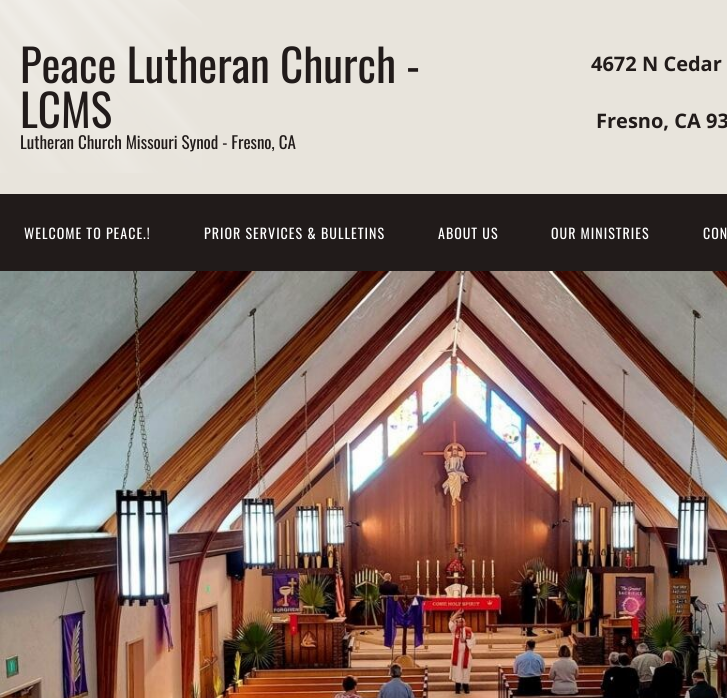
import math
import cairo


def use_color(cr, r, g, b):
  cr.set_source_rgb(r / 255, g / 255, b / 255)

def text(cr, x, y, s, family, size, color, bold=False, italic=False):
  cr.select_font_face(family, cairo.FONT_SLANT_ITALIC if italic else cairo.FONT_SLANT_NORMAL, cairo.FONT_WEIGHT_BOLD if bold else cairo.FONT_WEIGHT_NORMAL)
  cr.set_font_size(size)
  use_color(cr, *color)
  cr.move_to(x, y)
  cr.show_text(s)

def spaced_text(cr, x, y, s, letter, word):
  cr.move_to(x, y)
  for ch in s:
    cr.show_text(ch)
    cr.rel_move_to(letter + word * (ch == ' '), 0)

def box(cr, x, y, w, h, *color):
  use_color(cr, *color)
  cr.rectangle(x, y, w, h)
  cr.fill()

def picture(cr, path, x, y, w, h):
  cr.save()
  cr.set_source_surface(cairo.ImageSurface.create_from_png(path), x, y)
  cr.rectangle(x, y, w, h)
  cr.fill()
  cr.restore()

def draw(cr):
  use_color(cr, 232, 228, 220)
  cr.paint()
  picture(cr, "img_01.png", 0, 0, 202, 173)
  box(cr, 0, 194, 727, 77, 33, 27, 26)
  picture(cr, "img_02.png", 0, 271, 727, 427)
  text(cr, 20, 83, "Peace Lutheran Church -", "Oswald", 45, (33, 27, 26))
  text(cr, 20, 128, "LCMS", "Oswald", 45, (33, 27, 26))
  text(cr, 20, 149, "Lutheran Church Missouri Synod - Fresno, CA", "Oswald", 17, (33, 27, 26))
  text(cr, 591, 71, "4672 N Cedar", "Open Sans", 20, (33, 27, 26), bold=True)
  text(cr, 596, 128, "Fresno, CA 93", "Open Sans", 20, (33, 27, 26), bold=True)
  cr.select_font_face("Oswald")
  cr.set_font_size(14)
  use_color(cr, 255, 255, 255)
  spaced_text(cr, 24, 239, "WELCOME TO PEACE.!", 1, 0)
  spaced_text(cr, 204, 239, "PRIOR SERVICES & BULLETINS", 1, 0)
  spaced_text(cr, 438, 239, "ABOUT US", 1, 0)
  spaced_text(cr, 551, 239, "OUR MINISTRIES", 1, 0)
  spaced_text(cr, 703, 239, "CON", 1, 0)


surface = cairo.ImageSurface(cairo.FORMAT_RGB24, 727, 698)
cr = cairo.Context(surface)
options = cairo.FontOptions()
options.set_hint_metrics(cairo.HINT_METRICS_OFF)
options.set_hint_style(cairo.HINT_STYLE_NONE)
cr.set_font_options(options)
cr.set_miter_limit(4)
draw(cr)
surface.write_to_png("out.png")
